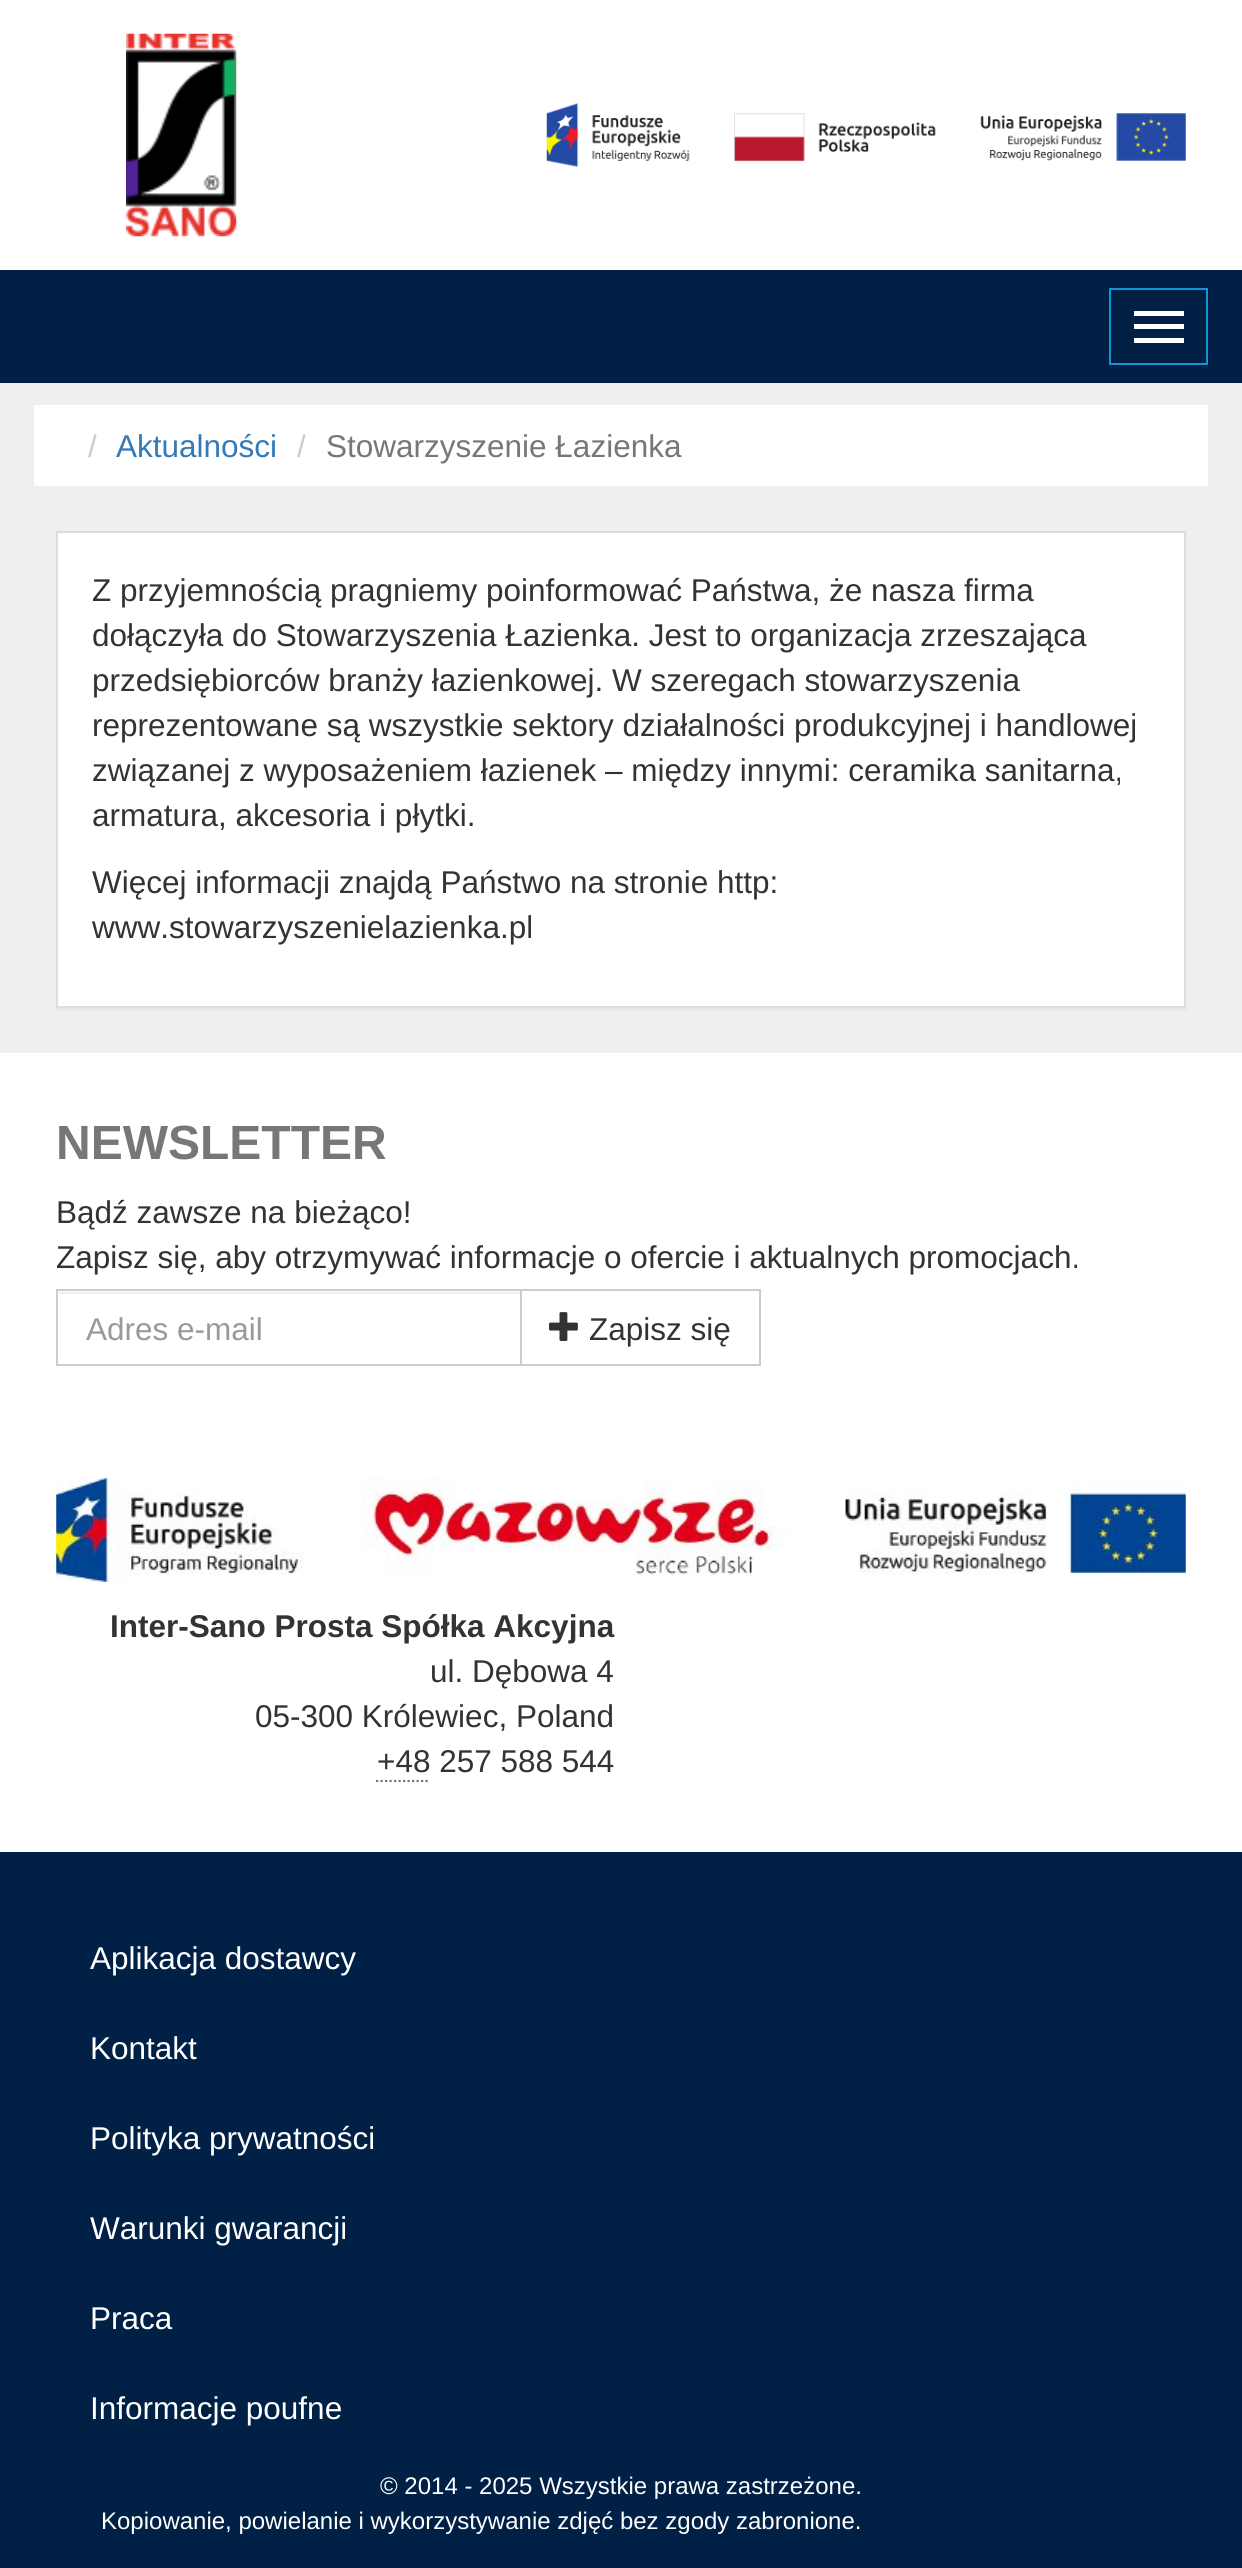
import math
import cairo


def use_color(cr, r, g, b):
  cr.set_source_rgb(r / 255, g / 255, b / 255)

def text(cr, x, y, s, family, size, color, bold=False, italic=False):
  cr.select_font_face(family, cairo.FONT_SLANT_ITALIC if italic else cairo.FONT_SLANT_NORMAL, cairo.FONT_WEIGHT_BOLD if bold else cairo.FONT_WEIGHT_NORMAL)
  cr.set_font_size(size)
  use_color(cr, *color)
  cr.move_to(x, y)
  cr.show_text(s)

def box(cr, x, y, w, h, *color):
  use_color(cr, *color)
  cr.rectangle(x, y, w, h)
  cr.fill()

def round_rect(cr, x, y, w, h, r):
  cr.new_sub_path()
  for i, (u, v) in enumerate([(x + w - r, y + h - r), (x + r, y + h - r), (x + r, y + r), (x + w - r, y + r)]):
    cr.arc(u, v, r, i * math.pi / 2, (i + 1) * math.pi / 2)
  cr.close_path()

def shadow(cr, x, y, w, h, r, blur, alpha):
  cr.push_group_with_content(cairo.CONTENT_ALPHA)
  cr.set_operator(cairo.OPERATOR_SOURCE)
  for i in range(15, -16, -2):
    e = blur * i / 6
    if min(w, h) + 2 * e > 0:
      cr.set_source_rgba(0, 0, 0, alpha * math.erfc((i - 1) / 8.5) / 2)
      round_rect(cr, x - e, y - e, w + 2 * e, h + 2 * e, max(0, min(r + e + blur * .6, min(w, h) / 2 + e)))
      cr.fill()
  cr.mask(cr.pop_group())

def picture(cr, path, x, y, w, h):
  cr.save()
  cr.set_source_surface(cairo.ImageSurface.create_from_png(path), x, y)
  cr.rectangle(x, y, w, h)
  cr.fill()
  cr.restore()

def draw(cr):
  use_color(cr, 255, 255, 255)
  cr.paint()
  picture(cr, "img_01.png", 126, 33, 111, 204)
  picture(cr, "img_02.png", 546, 103, 640, 64)
  box(cr, 0, 270, 1242, 113, 1, 32, 70)
  cr.rectangle(1110, 289, 97, 75)
  use_color(cr, 20, 149, 215)
  cr.stroke()
  box(cr, 1134, 311, 50, 5, 255, 255, 255)
  box(cr, 1134, 324, 50, 5, 255, 255, 255)
  box(cr, 1134, 338, 50, 5, 255, 255, 255)
  box(cr, 0, 383, 1242, 670, 239, 239, 239)
  box(cr, 34, 405, 1174, 81, 255, 255, 255)
  use_color(cr, 0, 0, 0)
  shadow(cr, 56, 533, 1130, 477, 0, 1, 0.05)
  use_color(cr, 255, 255, 255)
  cr.rectangle(57, 532, 1128, 475)
  cr.fill_preserve()
  use_color(cr, 221, 221, 221)
  cr.stroke()
  box(cr, 59, 1292, 461, 2, 236, 236, 236)
  cr.rectangle(57, 1290, 464, 75)
  use_color(cr, 204, 204, 204)
  cr.stroke()
  cr.rectangle(521, 1290, 239, 75)
  cr.stroke()
  picture(cr, "img_03.png", 549, 1312, 29, 29)
  picture(cr, "img_04.png", 56, 1478, 1130, 104)
  cr.new_path()
  cr.move_to(376, 1781)
  cr.line_to(430, 1781)
  use_color(cr, 119, 119, 119)
  cr.set_line_width(2.2)
  cr.set_dash([2.25, 2.25])
  cr.stroke()
  box(cr, 0, 1852, 1242, 716, 1, 32, 70)
  text(cr, 88, 457, "/", "Liberation Sans", 31.5, (204, 204, 204))
  text(cr, 116, 457, "Aktualności", "Liberation Sans", 31.5, (51, 122, 183))
  text(cr, 297, 457, "/", "Liberation Sans", 31.5, (204, 204, 204))
  text(cr, 326, 457, "Stowarzyszenie Łazienka", "Liberation Sans", 31.5, (119, 119, 119))
  text(cr, 92, 601, "Z przyjemnością pragniemy poinformować Państwa, że nasza firma", "Liberation Sans", 31.5, (51, 51, 51))
  text(cr, 92, 646, "dołączyła do Stowarzyszenia Łazienka. Jest to organizacja zrzeszająca", "Liberation Sans", 31.5, (51, 51, 51))
  text(cr, 92, 691, "przedsiębiorców branży łazienkowej. W szeregach stowarzyszenia", "Liberation Sans", 31.5, (51, 51, 51))
  text(cr, 92, 736, "reprezentowane są wszystkie sektory działalności produkcyjnej i handlowej", "Liberation Sans", 31.5, (51, 51, 51))
  text(cr, 92, 781, "związanej z wyposażeniem łazienek – między innymi: ceramika sanitarna,", "Liberation Sans", 31.5, (51, 51, 51))
  text(cr, 92, 826, "armatura, akcesoria i płytki.", "Liberation Sans", 31.5, (51, 51, 51))
  text(cr, 92, 893, "Więcej informacji znajdą Państwo na stronie http:", "Liberation Sans", 31.5, (51, 51, 51))
  text(cr, 92, 938, "www.stowarzyszenielazienka.pl", "Liberation Sans", 31.5, (51, 51, 51))
  text(cr, 56, 1159, "NEWSLETTER", "Liberation Sans", 48, (119, 119, 119), bold=True)
  text(cr, 56, 1223, "Bądź zawsze na bieżąco!", "Liberation Sans", 31.5, (51, 51, 51))
  text(cr, 56, 1268, "Zapisz się, aby otrzymywać informacje o ofercie i aktualnych promocjach.", "Liberation Sans", 31.5, (51, 51, 51))
  text(cr, 86, 1340, "Adres e-mail", "Liberation Sans", 31.5, (153, 153, 153))
  text(cr, 589, 1340, "Zapisz się", "Liberation Sans", 31.5, (51, 51, 51))
  text(cr, 110, 1637, "Inter-Sano Prosta Spółka Akcyjna", "Liberation Sans", 31.5, (51, 51, 51), bold=True)
  text(cr, 430, 1682, "ul. Dębowa 4", "Liberation Sans", 31.5, (51, 51, 51))
  text(cr, 255, 1727, "05-300 Królewiec, Poland", "Liberation Sans", 31.5, (51, 51, 51))
  text(cr, 377, 1772, "+48 257 588 544", "Liberation Sans", 31.5, (51, 51, 51))
  text(cr, 90, 1969, "Aplikacja dostawcy", "Liberation Sans", 31.5, (255, 255, 255))
  text(cr, 90, 2059, "Kontakt", "Liberation Sans", 31.5, (255, 255, 255))
  text(cr, 90, 2149, "Polityka prywatności", "Liberation Sans", 31.5, (255, 255, 255))
  text(cr, 90, 2239, "Warunki gwarancji", "Liberation Sans", 31.5, (255, 255, 255))
  text(cr, 90, 2329, "Praca", "Liberation Sans", 31.5, (255, 255, 255))
  text(cr, 90, 2419, "Informacje poufne", "Liberation Sans", 31.5, (255, 255, 255))
  text(cr, 380, 2494, "© 2014 - 2025 Wszystkie prawa zastrzeżone.", "Liberation Sans", 24, (255, 255, 255))
  text(cr, 101, 2529, "Kopiowanie, powielanie i wykorzystywanie zdjęć bez zgody zabronione.", "Liberation Sans", 24, (255, 255, 255))


surface = cairo.ImageSurface(cairo.FORMAT_RGB24, 1242, 2568)
cr = cairo.Context(surface)
options = cairo.FontOptions()
options.set_hint_metrics(cairo.HINT_METRICS_OFF)
options.set_hint_style(cairo.HINT_STYLE_NONE)
cr.set_font_options(options)
cr.set_miter_limit(4)
draw(cr)
surface.write_to_png("out.png")
